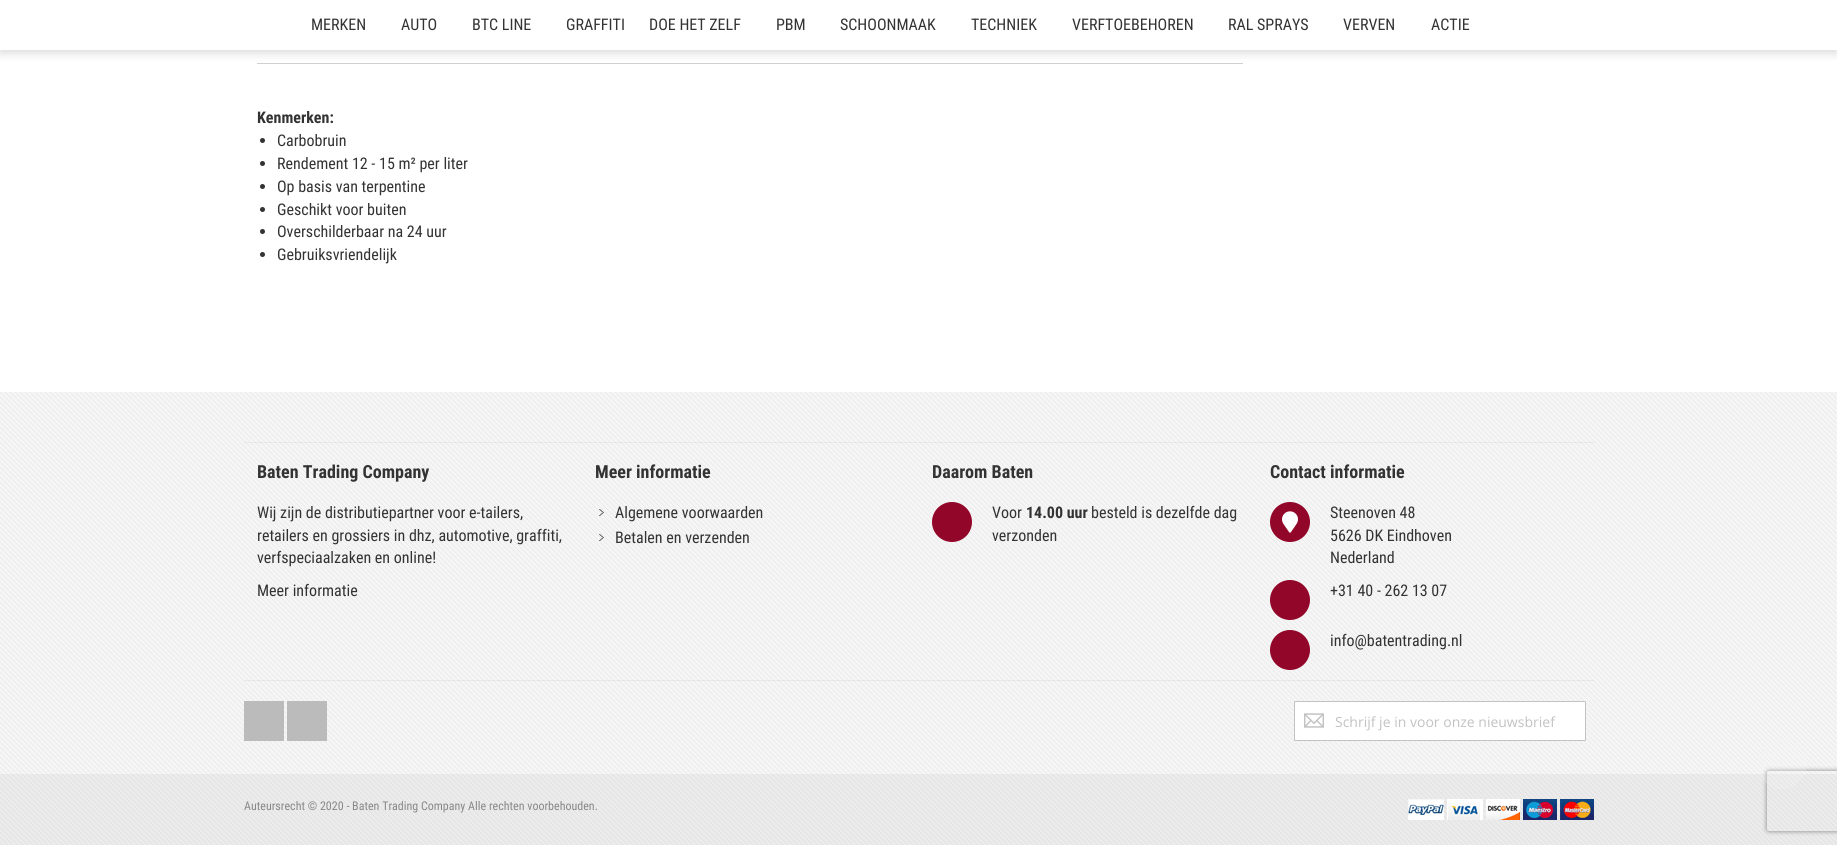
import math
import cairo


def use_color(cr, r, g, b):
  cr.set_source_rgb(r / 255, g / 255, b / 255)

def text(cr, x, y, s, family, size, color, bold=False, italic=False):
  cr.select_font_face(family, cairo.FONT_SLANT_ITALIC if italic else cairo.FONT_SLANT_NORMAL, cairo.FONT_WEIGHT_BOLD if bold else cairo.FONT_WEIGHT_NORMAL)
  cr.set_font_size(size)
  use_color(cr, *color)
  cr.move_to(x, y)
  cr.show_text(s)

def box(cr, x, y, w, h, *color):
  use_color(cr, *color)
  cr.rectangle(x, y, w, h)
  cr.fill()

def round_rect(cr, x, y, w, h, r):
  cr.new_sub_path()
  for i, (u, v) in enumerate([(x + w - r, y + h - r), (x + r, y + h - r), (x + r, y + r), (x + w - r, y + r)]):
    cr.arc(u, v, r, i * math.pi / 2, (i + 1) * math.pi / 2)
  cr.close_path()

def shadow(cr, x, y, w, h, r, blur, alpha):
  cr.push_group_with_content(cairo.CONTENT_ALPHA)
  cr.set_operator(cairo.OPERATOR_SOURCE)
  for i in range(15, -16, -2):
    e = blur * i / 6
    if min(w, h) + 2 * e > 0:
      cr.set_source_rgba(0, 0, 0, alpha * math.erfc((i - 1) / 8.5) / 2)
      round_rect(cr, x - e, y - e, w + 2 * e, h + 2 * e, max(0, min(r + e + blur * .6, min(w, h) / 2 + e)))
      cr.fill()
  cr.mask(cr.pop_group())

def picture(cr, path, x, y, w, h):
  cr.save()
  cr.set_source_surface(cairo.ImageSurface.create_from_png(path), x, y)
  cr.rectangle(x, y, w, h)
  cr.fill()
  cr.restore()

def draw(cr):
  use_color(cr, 255, 255, 255)
  cr.paint()
  box(cr, 257, 63, 986, 1, 209, 209, 209)
  use_color(cr, 0, 0, 0)
  shadow(cr, 0, 3, 1837, 50, 0, 5, 0.15)
  box(cr, 0, 0, 1837, 50, 255, 255, 255)
  use_color(cr, 51, 51, 51)
  cr.arc(262.5, 140.5, 2.5, 0, 2 * math.pi)
  cr.fill()
  cr.arc(262.5, 163.5, 2.5, 0, 2 * math.pi)
  cr.fill()
  cr.arc(262.5, 186.5, 2.5, 0, 2 * math.pi)
  cr.fill()
  cr.arc(262.5, 209.5, 2.5, 0, 2 * math.pi)
  cr.fill()
  cr.arc(262.5, 231.5, 2.5, 0, 2 * math.pi)
  cr.fill()
  cr.arc(262.5, 254.5, 2.5, 0, 2 * math.pi)
  cr.fill()
  box(cr, 0, 392, 1837, 453, 245, 245, 245)
  picture(cr, "img_01.png", 0, 392, 1837, 453)
  cr.set_source_rgba(0, 0, 0, 0.05)
  cr.rectangle(244, 442, 1350, 1)
  cr.fill()
  picture(cr, "img_02.png", 599, 509, 5, 7)
  picture(cr, "img_02.png", 599, 534, 5, 7)
  use_color(cr, 146, 6, 41)
  cr.arc(952, 522, 20, 0, 2 * math.pi)
  cr.fill()
  cr.arc(1290, 522, 20, 0, 2 * math.pi)
  cr.fill()
  picture(cr, "img_03.png", 1282, 511, 16, 22)
  cr.arc(1290, 600, 20, 0, 2 * math.pi)
  cr.fill()
  cr.arc(1290, 650, 20, 0, 2 * math.pi)
  cr.fill()
  cr.set_source_rgba(0, 0, 0, 0.05)
  cr.rectangle(244, 680, 1350, 1)
  cr.fill()
  box(cr, 244, 701, 40, 40, 187, 187, 187)
  box(cr, 287, 701, 40, 40, 187, 187, 187)
  use_color(cr, 255, 255, 255)
  round_rect(cr, 1294.5, 701.5, 291, 39, 0.5)
  cr.fill_preserve()
  use_color(cr, 194, 194, 194)
  cr.set_line_width(1)
  cr.stroke()
  picture(cr, "img_04.png", 1304, 713, 20, 15)
  cr.set_source_rgba(0, 0, 0, 0.04)
  cr.rectangle(0, 774, 1837, 71)
  cr.fill()
  cr.save()
  cr.set_fill_rule(cairo.FILL_RULE_EVEN_ODD)
  cr.new_path()
  cr.move_to(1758, 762)
  cr.line_to(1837, 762)
  cr.line_to(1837, 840)
  cr.line_to(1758, 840)
  cr.close_path()
  cr.move_to(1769, 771)
  cr.line_to(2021, 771)
  cr.curve_to(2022, 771, 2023, 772, 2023, 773)
  cr.line_to(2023, 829)
  cr.curve_to(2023, 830, 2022, 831, 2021, 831)
  cr.line_to(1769, 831)
  cr.curve_to(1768, 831, 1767, 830, 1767, 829)
  cr.line_to(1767, 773)
  cr.curve_to(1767, 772, 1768, 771, 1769, 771)
  cr.close_path()
  cr.clip()
  use_color(cr, 128, 128, 128)
  shadow(cr, 1767, 771, 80, 60, 2, 2.5, 1)
  cr.restore()
  cr.set_source_rgba(0.961, 0.961, 0.961, 0.2)
  cr.arc(1782, 764, 25, 0, 2 * math.pi)
  cr.fill()
  picture(cr, "img_05.png", 1408, 799, 186, 21)
  text(cr, 311, 30, "MERKEN", "Roboto Condensed", 16, (51, 51, 51))
  text(cr, 401, 30, "AUTO", "Roboto Condensed", 16, (51, 51, 51))
  text(cr, 472, 30, "BTC LINE", "Roboto Condensed", 16, (51, 51, 51))
  text(cr, 566, 30, "GRAFFITI", "Roboto Condensed", 16, (51, 51, 51))
  text(cr, 649, 30, "DOE HET ZELF", "Roboto Condensed", 16, (51, 51, 51))
  text(cr, 776, 30, "PBM", "Roboto Condensed", 16, (51, 51, 51))
  text(cr, 840, 30, "SCHOONMAAK", "Roboto Condensed", 16, (51, 51, 51))
  text(cr, 971, 30, "TECHNIEK", "Roboto Condensed", 16, (51, 51, 51))
  text(cr, 1072, 30, "VERFTOEBEHOREN", "Roboto Condensed", 16, (51, 51, 51))
  text(cr, 1228, 30, "RAL SPRAYS", "Roboto Condensed", 16, (51, 51, 51))
  text(cr, 1343, 30, "VERVEN", "Roboto Condensed", 16, (51, 51, 51))
  text(cr, 1431, 30, "ACTIE", "Roboto Condensed", 16, (51, 51, 51))
  text(cr, 257, 123, "Kenmerken:", "Roboto Condensed", 16, (51, 51, 51), bold=True)
  text(cr, 277, 146, "Carbobruin", "Roboto Condensed", 16, (51, 51, 51))
  text(cr, 277, 169, "Rendement 12 - 15 m² per liter", "Roboto Condensed", 16, (51, 51, 51))
  text(cr, 277, 192, "Op basis van terpentine", "Roboto Condensed", 16, (51, 51, 51))
  text(cr, 277, 215, "Geschikt voor buiten", "Roboto Condensed", 16, (51, 51, 51))
  text(cr, 277, 237, "Overschilderbaar na 24 uur", "Roboto Condensed", 16, (51, 51, 51))
  text(cr, 277, 260, "Gebruiksvriendelijk", "Roboto Condensed", 16, (51, 51, 51))
  text(cr, 257, 478, "Baten Trading Company", "Roboto Condensed", 18, (51, 51, 51), bold=True)
  text(cr, 257, 518, "Wij zijn de distributiepartner voor e-tailers,", "Roboto Condensed", 16, (51, 51, 51))
  text(cr, 257, 541, "retailers en grossiers in dhz, automotive, graffiti,", "Roboto Condensed", 16, (51, 51, 51))
  text(cr, 257, 563, "verfspeciaalzaken en online!", "Roboto Condensed", 16, (51, 51, 51))
  text(cr, 257, 596, "Meer informatie", "Roboto Condensed", 16, (51, 51, 51))
  text(cr, 595, 478, "Meer informatie", "Roboto Condensed", 18, (51, 51, 51), bold=True)
  text(cr, 615, 518, "Algemene voorwaarden", "Roboto Condensed", 16, (51, 51, 51))
  text(cr, 615, 543, "Betalen en verzenden", "Roboto Condensed", 16, (51, 51, 51))
  text(cr, 932, 478, "Daarom Baten", "Roboto Condensed", 18, (51, 51, 51), bold=True)
  text(cr, 992, 518, "Voor", "Roboto Condensed", 16, (51, 51, 51))
  text(cr, 1026, 518, "14.00 uur", "Roboto Condensed", 16, (51, 51, 51), bold=True)
  text(cr, 1091, 518, "besteld is dezelfde dag", "Roboto Condensed", 16, (51, 51, 51))
  text(cr, 992, 541, "verzonden", "Roboto Condensed", 16, (51, 51, 51))
  text(cr, 1270, 478, "Contact informatie", "Roboto Condensed", 18, (51, 51, 51), bold=True)
  text(cr, 1330, 518, "Steenoven 48", "Roboto Condensed", 16, (51, 51, 51))
  text(cr, 1330, 541, "5626 DK Eindhoven", "Roboto Condensed", 16, (51, 51, 51))
  text(cr, 1330, 563, "Nederland", "Roboto Condensed", 16, (51, 51, 51))
  text(cr, 1330, 596, "+31 40 - 262 13 07", "Roboto Condensed", 16, (51, 51, 51))
  text(cr, 1330, 646, "info@batentrading.nl", "Roboto Condensed", 16, (51, 51, 51))
  text(cr, 1335, 727, "Schrijf je in voor onze nieuwsbrief", "Open Sans", 14, (194, 194, 194))
  text(cr, 244, 810, "Auteursrecht © 2020 - Baten Trading Company Alle rechten voorbehouden.", "Roboto Condensed", 12, (136, 136, 136))


surface = cairo.ImageSurface(cairo.FORMAT_RGB24, 1837, 845)
cr = cairo.Context(surface)
options = cairo.FontOptions()
options.set_hint_metrics(cairo.HINT_METRICS_OFF)
options.set_hint_style(cairo.HINT_STYLE_NONE)
cr.set_font_options(options)
cr.set_miter_limit(4)
draw(cr)
surface.write_to_png("out.png")
